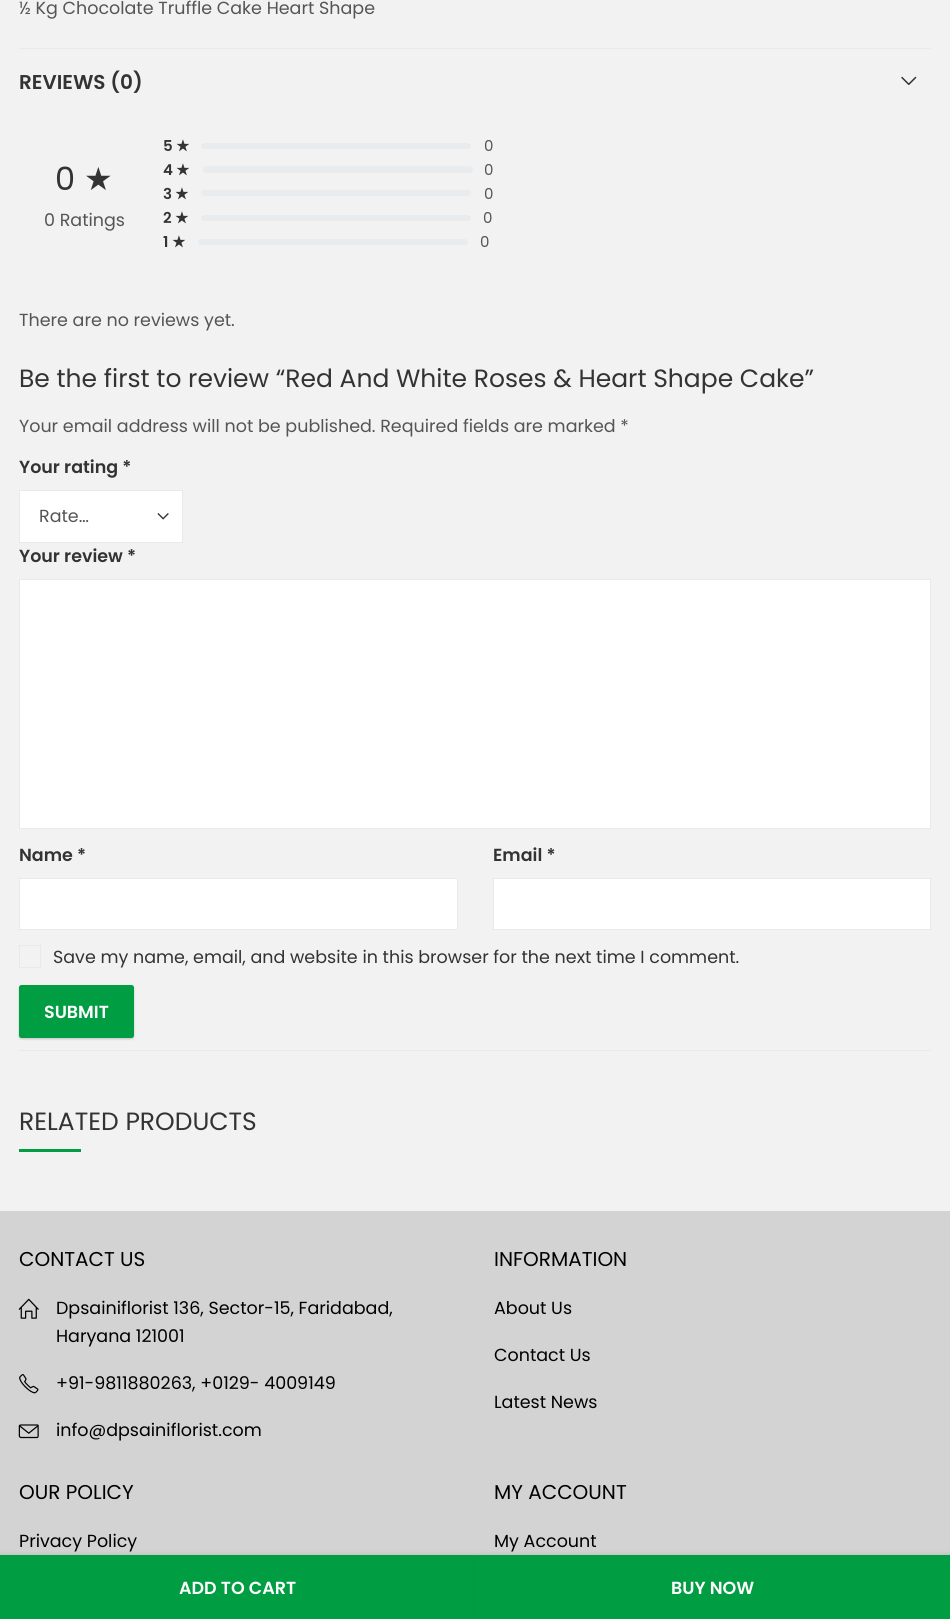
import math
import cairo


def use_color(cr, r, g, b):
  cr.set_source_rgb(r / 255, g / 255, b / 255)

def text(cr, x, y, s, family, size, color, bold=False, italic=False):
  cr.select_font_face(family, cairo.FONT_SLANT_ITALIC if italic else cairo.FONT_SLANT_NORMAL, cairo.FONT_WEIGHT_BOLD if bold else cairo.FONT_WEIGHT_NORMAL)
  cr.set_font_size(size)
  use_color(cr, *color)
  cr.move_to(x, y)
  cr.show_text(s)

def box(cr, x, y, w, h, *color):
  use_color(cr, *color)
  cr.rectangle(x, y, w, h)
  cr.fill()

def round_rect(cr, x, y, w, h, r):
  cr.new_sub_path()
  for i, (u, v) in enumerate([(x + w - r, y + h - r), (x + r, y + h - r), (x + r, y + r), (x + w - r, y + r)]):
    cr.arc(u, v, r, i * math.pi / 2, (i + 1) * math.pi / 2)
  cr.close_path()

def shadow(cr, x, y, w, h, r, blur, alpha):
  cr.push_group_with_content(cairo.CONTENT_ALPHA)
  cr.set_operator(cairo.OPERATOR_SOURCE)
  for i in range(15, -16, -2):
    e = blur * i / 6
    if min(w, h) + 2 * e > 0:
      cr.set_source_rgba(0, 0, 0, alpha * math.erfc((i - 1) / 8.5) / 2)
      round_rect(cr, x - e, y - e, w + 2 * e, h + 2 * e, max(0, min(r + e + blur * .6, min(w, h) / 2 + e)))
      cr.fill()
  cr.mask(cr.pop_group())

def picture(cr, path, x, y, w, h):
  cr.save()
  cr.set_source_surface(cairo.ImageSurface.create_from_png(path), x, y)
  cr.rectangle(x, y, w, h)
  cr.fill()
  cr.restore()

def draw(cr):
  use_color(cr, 242, 242, 242)
  cr.paint()
  box(cr, 19, 48, 912, 1, 233, 233, 233)
  box(cr, 19, 1050, 912, 1, 233, 233, 233)
  picture(cr, "img_01.png", 901, 76, 16, 9)
  use_color(cr, 233, 236, 239)
  round_rect(cr, 201, 143, 270, 6, 3)
  cr.fill()
  round_rect(cr, 203, 166, 270, 7, 3.5)
  cr.fill()
  round_rect(cr, 201, 190, 270, 6, 3)
  cr.fill()
  round_rect(cr, 201, 215, 270, 6, 3)
  cr.fill()
  round_rect(cr, 198, 239, 270, 6, 3)
  cr.fill()
  box(cr, 20, 491, 162, 51, 255, 255, 255)
  picture(cr, "img_02.png", 157, 513, 12, 7)
  cr.rectangle(19.5, 490.5, 163, 52)
  use_color(cr, 233, 233, 233)
  cr.set_line_width(1)
  cr.stroke()
  use_color(cr, 255, 255, 255)
  cr.rectangle(19.5, 579.5, 911, 249)
  cr.fill_preserve()
  use_color(cr, 233, 233, 233)
  cr.stroke()
  use_color(cr, 255, 255, 255)
  cr.rectangle(19.5, 878.5, 438, 51)
  cr.fill_preserve()
  use_color(cr, 233, 233, 233)
  cr.stroke()
  use_color(cr, 255, 255, 255)
  cr.rectangle(493.5, 878.5, 437, 51)
  cr.fill_preserve()
  use_color(cr, 233, 233, 233)
  cr.stroke()
  cr.rectangle(19.5, 945.5, 21, 22)
  cr.stroke()
  use_color(cr, 0, 0, 0)
  shadow(cr, 19, 986, 115, 53, 2.5, 1, 0.2)
  use_color(cr, 0, 157, 66)
  round_rect(cr, 19, 985, 115, 53, 2.5)
  cr.fill()
  box(cr, 19, 1149, 62, 3, 0, 157, 66)
  box(cr, 0, 1211, 950, 344, 211, 211, 211)
  use_color(cr, 0, 0, 0)
  shadow(cr, 0, 1555, 475, 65, 0, 2.5, 0.15)
  box(cr, 0, 1555, 475, 64, 0, 157, 66)
  use_color(cr, 0, 0, 0)
  shadow(cr, 478, 1555, 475, 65, 0, 2.5, 0.15)
  box(cr, 475, 1555, 475, 64, 0, 157, 66)
  picture(cr, "img_03.png", 18, 1298, 21, 21)
  picture(cr, "img_04.png", 19, 1374, 20, 20)
  picture(cr, "img_05.png", 18, 1424, 21, 15)
  text(cr, 19, 14, "½ Kg Chocolate Truffle Cake Heart Shape", "Poppins", 17.5, (85, 85, 85))
  text(cr, 19, 89, "REVIEWS (0)", "Poppins SemiBold", 20, (51, 51, 51))
  text(cr, 55, 190, "0", "Poppins", 32, (51, 51, 51))
  text(cr, 84, 190, "★", "DejaVu Sans", 32, (51, 51, 51))
  text(cr, 44, 226, "0 Ratings", "Poppins", 17.5, (85, 85, 85))
  text(cr, 163, 151, "5", "Poppins SemiBold", 15, (51, 51, 51))
  text(cr, 176, 151, "★", "DejaVu Sans", 15, (51, 51, 51), bold=True)
  text(cr, 484, 151, "0", "Poppins", 15, (85, 85, 85))
  text(cr, 163, 175, "4", "Poppins SemiBold", 15, (51, 51, 51))
  text(cr, 176, 175, "★", "DejaVu Sans", 15, (51, 51, 51), bold=True)
  text(cr, 484, 175, "0", "Poppins", 15, (85, 85, 85))
  text(cr, 163, 199, "3", "Poppins SemiBold", 15, (51, 51, 51))
  text(cr, 175, 199, "★", "DejaVu Sans", 15, (51, 51, 51), bold=True)
  text(cr, 484, 199, "0", "Poppins", 15, (85, 85, 85))
  text(cr, 163, 223, "2", "Poppins SemiBold", 15, (51, 51, 51))
  text(cr, 175, 223, "★", "DejaVu Sans", 15, (51, 51, 51), bold=True)
  text(cr, 483, 223, "0", "Poppins", 15, (85, 85, 85))
  text(cr, 163, 247, "1", "Poppins SemiBold", 15, (51, 51, 51))
  text(cr, 172, 247, "★", "DejaVu Sans", 15, (51, 51, 51), bold=True)
  text(cr, 480, 247, "0", "Poppins", 15, (85, 85, 85))
  text(cr, 19, 326, "There are no reviews yet.", "Poppins", 17.5, (85, 85, 85))
  text(cr, 19, 387, "Be the first to review “Red And White Roses & Heart Shape Cake”", "Poppins", 25, (51, 51, 51))
  text(cr, 19, 432, "Your email address will not be published. Required fields are marked *", "Poppins", 17.5, (85, 85, 85))
  text(cr, 19, 473, "Your rating *", "Poppins SemiBold", 17.5, (51, 51, 51))
  text(cr, 39, 522, "Rate…", "Poppins", 17.5, (85, 85, 85))
  text(cr, 19, 562, "Your review *", "Poppins SemiBold", 17.5, (51, 51, 51))
  text(cr, 19, 861, "Name *", "Poppins SemiBold", 17.5, (51, 51, 51))
  text(cr, 493, 861, "Email *", "Poppins SemiBold", 17.5, (51, 51, 51))
  text(cr, 53, 963, "Save my name, email, and website in this browser for the next time I comment.", "Poppins", 17.5, (51, 51, 51))
  text(cr, 44, 1018, "SUBMIT", "Poppins SemiBold", 17.5, (255, 255, 255))
  text(cr, 19, 1130, "RELATED PRODUCTS", "Poppins", 25, (51, 51, 51))
  text(cr, 179, 1594, "ADD TO CART", "Poppins SemiBold", 17.5, (255, 255, 255))
  text(cr, 671, 1594, "BUY NOW", "Poppins SemiBold", 17.5, (255, 255, 255))
  text(cr, 19, 1266, "CONTACT US", "Poppins", 20, (0, 0, 0))
  text(cr, 56, 1314, "Dpsainiflorist 136, Sector-15, Faridabad,", "Poppins", 17.5, (0, 0, 0))
  text(cr, 56, 1342, "Haryana 121001", "Poppins", 17.5, (0, 0, 0))
  text(cr, 56, 1389, "+91-9811880263, +0129- 4009149", "Poppins", 17.5, (0, 0, 0))
  text(cr, 56, 1436, "info@dpsainiflorist.com", "Poppins", 17.5, (0, 0, 0))
  text(cr, 494, 1266, "INFORMATION", "Poppins", 20, (0, 0, 0))
  text(cr, 494, 1314, "About Us", "Poppins", 17.5, (0, 0, 0))
  text(cr, 494, 1361, "Contact Us", "Poppins", 17.5, (0, 0, 0))
  text(cr, 494, 1408, "Latest News", "Poppins", 17.5, (0, 0, 0))
  text(cr, 19, 1499, "OUR POLICY", "Poppins", 20, (0, 0, 0))
  text(cr, 19, 1547, "Privacy Policy", "Poppins", 17.5, (0, 0, 0))
  text(cr, 494, 1499, "MY ACCOUNT", "Poppins", 20, (0, 0, 0))
  text(cr, 494, 1547, "My Account", "Poppins", 17.5, (0, 0, 0))


surface = cairo.ImageSurface(cairo.FORMAT_RGB24, 950, 1619)
cr = cairo.Context(surface)
options = cairo.FontOptions()
options.set_hint_metrics(cairo.HINT_METRICS_OFF)
options.set_hint_style(cairo.HINT_STYLE_NONE)
cr.set_font_options(options)
cr.set_miter_limit(4)
draw(cr)
surface.write_to_png("out.png")
